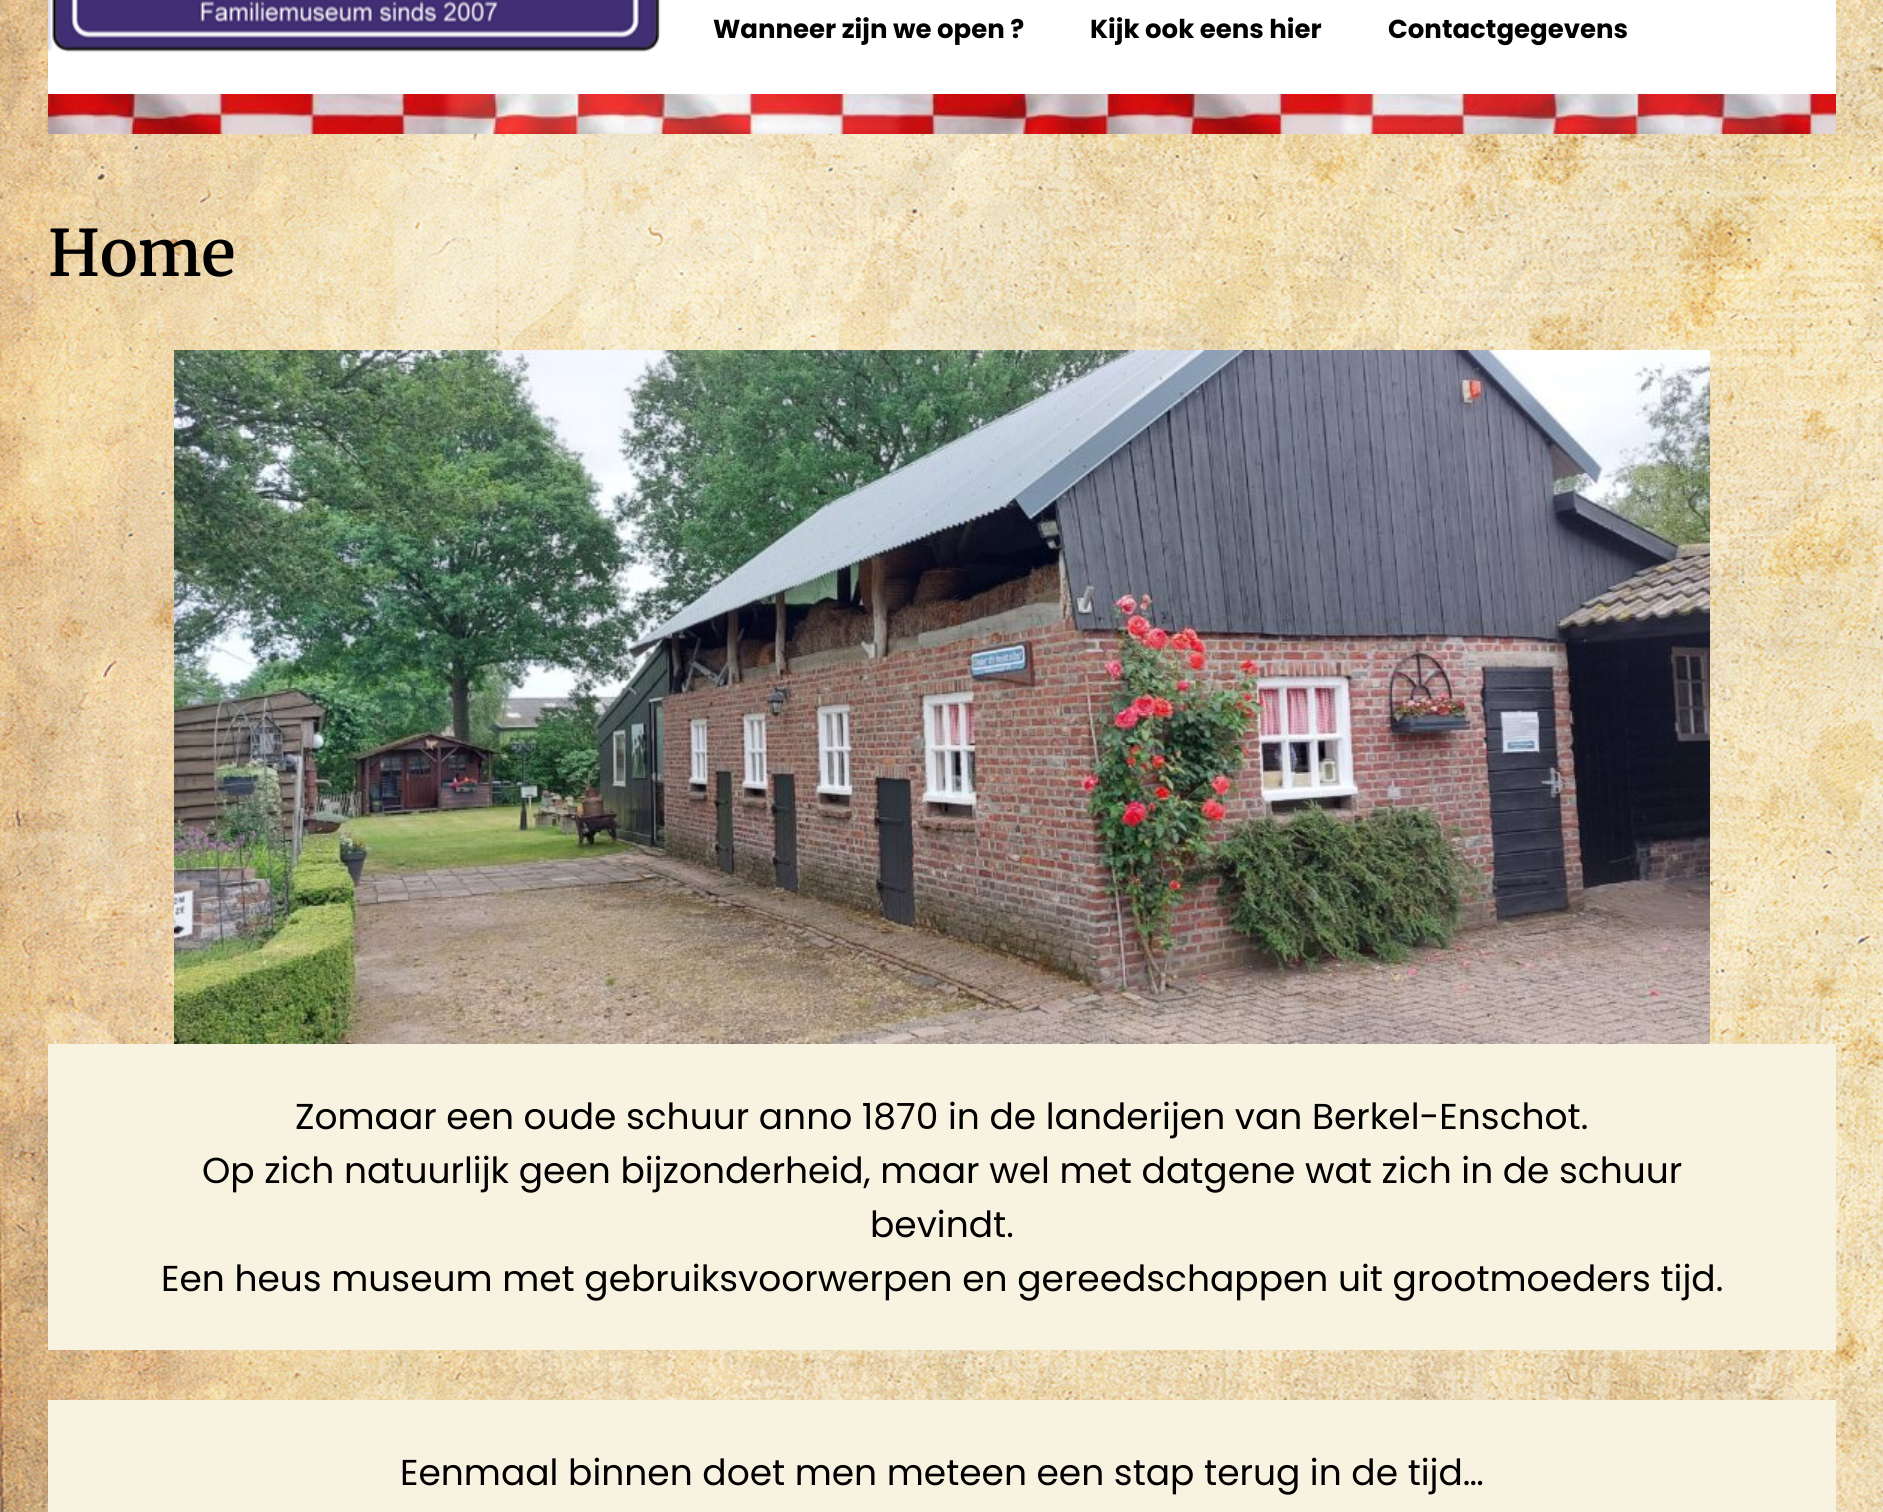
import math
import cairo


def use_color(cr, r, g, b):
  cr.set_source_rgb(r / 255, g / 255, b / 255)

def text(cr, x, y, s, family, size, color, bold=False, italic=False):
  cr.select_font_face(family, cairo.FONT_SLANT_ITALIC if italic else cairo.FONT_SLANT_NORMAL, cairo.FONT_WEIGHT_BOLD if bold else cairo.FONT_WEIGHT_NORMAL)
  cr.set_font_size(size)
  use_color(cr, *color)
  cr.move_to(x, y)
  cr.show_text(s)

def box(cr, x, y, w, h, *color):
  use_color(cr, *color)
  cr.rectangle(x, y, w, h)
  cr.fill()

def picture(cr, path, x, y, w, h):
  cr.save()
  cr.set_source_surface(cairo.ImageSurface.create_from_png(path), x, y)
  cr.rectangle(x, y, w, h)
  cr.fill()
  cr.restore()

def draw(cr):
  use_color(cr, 255, 255, 255)
  cr.paint()
  picture(cr, "img_01.png", 0, 0, 1883, 1512)
  picture(cr, "img_02.png", 48, 94, 1788, 40)
  box(cr, 48, 0, 1788, 94, 255, 255, 255)
  picture(cr, "img_03.png", 48, 0, 613, 53)
  picture(cr, "img_04.png", 174, 350, 1536, 694)
  box(cr, 48, 1044, 1788, 306, 247, 243, 224)
  box(cr, 48, 1400, 1788, 112, 247, 243, 224)
  text(cr, 713, 38, "Wanneer zijn we open ?", "Poppins", 26, (0, 0, 0), bold=True)
  text(cr, 1090, 38, "Kijk ook eens hier", "Poppins", 26, (0, 0, 0), bold=True)
  text(cr, 1388, 38, "Contactgegevens", "Poppins", 26, (0, 0, 0), bold=True)
  text(cr, 48, 276, "Home", "Merriweather SemiBold", 64, (0, 0, 0))
  text(cr, 295, 1129, "Zomaar een oude schuur anno 1870 in de landerijen van Berkel-Enschot.", "Poppins", 36, (0, 0, 0))
  text(cr, 202, 1183, "Op zich natuurlijk geen bijzonderheid, maar wel met datgene wat zich in de schuur", "Poppins", 36, (0, 0, 0))
  text(cr, 870, 1237, "bevindt.", "Poppins", 36, (0, 0, 0))
  text(cr, 161, 1291, "Een heus museum met gebruiksvoorwerpen en gereedschappen uit grootmoeders tijd.", "Poppins", 36, (0, 0, 0))
  text(cr, 400, 1485, "Eenmaal binnen doet men meteen een stap terug in de tijd…", "Poppins", 36, (0, 0, 0))


surface = cairo.ImageSurface(cairo.FORMAT_RGB24, 1883, 1512)
cr = cairo.Context(surface)
options = cairo.FontOptions()
options.set_hint_metrics(cairo.HINT_METRICS_OFF)
options.set_hint_style(cairo.HINT_STYLE_NONE)
cr.set_font_options(options)
cr.set_miter_limit(4)
draw(cr)
surface.write_to_png("out.png")
